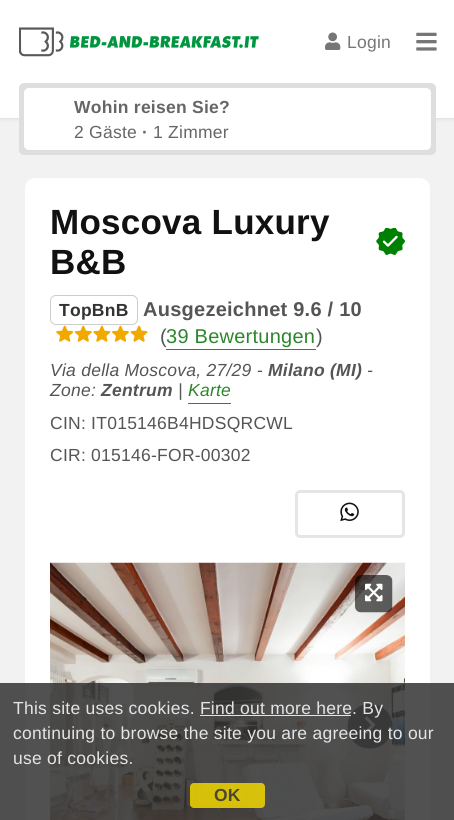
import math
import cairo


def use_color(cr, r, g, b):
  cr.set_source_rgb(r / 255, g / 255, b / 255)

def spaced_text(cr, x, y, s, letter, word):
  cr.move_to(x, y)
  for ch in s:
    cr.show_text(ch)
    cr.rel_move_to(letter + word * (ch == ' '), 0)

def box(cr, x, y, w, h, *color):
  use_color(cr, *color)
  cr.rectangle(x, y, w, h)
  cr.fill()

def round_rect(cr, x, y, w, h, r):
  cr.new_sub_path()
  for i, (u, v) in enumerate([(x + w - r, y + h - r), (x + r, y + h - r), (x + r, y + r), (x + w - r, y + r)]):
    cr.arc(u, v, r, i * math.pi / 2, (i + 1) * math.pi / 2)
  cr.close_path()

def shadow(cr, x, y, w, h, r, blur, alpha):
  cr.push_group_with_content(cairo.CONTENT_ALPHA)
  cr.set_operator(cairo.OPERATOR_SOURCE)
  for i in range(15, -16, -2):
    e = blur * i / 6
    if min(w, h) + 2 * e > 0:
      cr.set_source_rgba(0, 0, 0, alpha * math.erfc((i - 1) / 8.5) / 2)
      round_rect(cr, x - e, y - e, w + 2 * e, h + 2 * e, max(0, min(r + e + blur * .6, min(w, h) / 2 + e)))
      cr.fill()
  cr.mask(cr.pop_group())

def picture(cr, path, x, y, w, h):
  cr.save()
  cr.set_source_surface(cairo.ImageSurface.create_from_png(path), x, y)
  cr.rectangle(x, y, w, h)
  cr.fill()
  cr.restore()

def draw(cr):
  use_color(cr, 242, 242, 242)
  cr.paint()
  use_color(cr, 0, 0, 0)
  shadow(cr, 0, 1, 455, 118, 0, 2, 0.1)
  box(cr, 0, 0, 454, 118, 255, 255, 255)
  picture(cr, "img_01.png", 19, 27, 240, 30)
  picture(cr, "img_02.png", 325, 32, 16, 18)
  picture(cr, "img_03.png", 416, 32, 21, 19)
  use_color(cr, 222, 222, 222)
  round_rect(cr, 19, 83, 417, 72, 5)
  cr.fill()
  use_color(cr, 255, 255, 255)
  round_rect(cr, 24, 88, 407, 62, 5)
  cr.fill()
  cr.new_path()
  cr.move_to(35, 178)
  cr.line_to(420, 178)
  cr.curve_to(425.5, 178, 430, 182.5, 430, 188)
  cr.line_to(430, 563)
  cr.line_to(25, 563)
  cr.line_to(25, 188)
  cr.curve_to(25, 182.5, 29.5, 178, 35, 178)
  cr.close_path()
  cr.fill()
  picture(cr, "img_04.png", 376, 228, 29, 27)
  round_rect(cr, 50.5, 295.5, 87, 29, 5.5)
  use_color(cr, 204, 204, 204)
  cr.set_line_width(1)
  cr.stroke()
  picture(cr, "img_05.png", 56, 325, 92, 17)
  box(cr, 166, 349, 150, 1, 45, 134, 45)
  box(cr, 188, 403, 43, 1, 45, 134, 45)
  round_rect(cr, 296.5, 491.5, 107, 45, 3.5)
  use_color(cr, 229, 229, 229)
  cr.set_line_width(3)
  cr.stroke()
  picture(cr, "img_06.png", 340, 502, 19, 20)
  box(cr, 25, 563, 405, 257, 255, 255, 255)
  picture(cr, "img_07.png", 50, 562, 355, 258)
  picture(cr, "img_08.png", 355, 575, 38, 38)
  picture(cr, "img_09.png", 365, 583, 18, 19)
  picture(cr, "img_10.png", 347, 703, 46, 46)
  picture(cr, "img_11.png", 364, 716, 12, 18)
  cr.set_source_rgba(0.2, 0.2, 0.2, 0.85)
  cr.rectangle(0, 683, 454, 137)
  cr.fill()
  cr.set_source_rgba(1, 1, 1, 0.85)
  cr.rectangle(200, 715, 151, 1)
  cr.fill()
  cr.set_source_rgba(0.945, 0.839, 0, 0.85)
  round_rect(cr, 190, 783, 75, 25, 4)
  cr.fill()
  cr.select_font_face("Liberation Sans")
  cr.set_font_size(17.5)
  use_color(cr, 118, 118, 118)
  spaced_text(cr, 347, 48, "Login", 0.25, 0)
  cr.select_font_face("Liberation Sans", cairo.FONT_SLANT_NORMAL, cairo.FONT_WEIGHT_BOLD)
  use_color(cr, 102, 102, 102)
  spaced_text(cr, 74, 113, "Wohin reisen Sie?", 0.25, 0)
  cr.select_font_face("Liberation Sans")
  spaced_text(cr, 74, 138, "2 Gäste", 0.25, 0)
  cr.select_font_face("Liberation Sans", cairo.FONT_SLANT_NORMAL, cairo.FONT_WEIGHT_BOLD)
  spaced_text(cr, 142, 138, "·", 0.25, 0)
  cr.select_font_face("Liberation Sans")
  spaced_text(cr, 153, 138, "1 Zimmer", 0.25, 0)
  cr.select_font_face("Liberation Sans", cairo.FONT_SLANT_NORMAL, cairo.FONT_WEIGHT_BOLD)
  cr.set_font_size(35)
  use_color(cr, 17, 17, 17)
  spaced_text(cr, 50, 234, "Moscova Luxury", 0.25, 0)
  spaced_text(cr, 50, 274, "B&B", 0.25, 0)
  cr.set_font_size(17.5)
  use_color(cr, 51, 51, 51)
  spaced_text(cr, 59, 316, "TopBnB", 0.25, 0)
  cr.set_font_size(20)
  use_color(cr, 85, 85, 85)
  spaced_text(cr, 143, 316, "Ausgezeichnet 9.6 / 10", 0.25, 0)
  cr.select_font_face("Liberation Sans")
  spaced_text(cr, 160, 343, "(", 0.25, 0)
  use_color(cr, 45, 134, 45)
  spaced_text(cr, 166, 343, "39 Bewertungen", 0.25, 0)
  use_color(cr, 85, 85, 85)
  spaced_text(cr, 316, 343, ")", 0.25, 0)
  cr.select_font_face("Liberation Sans", cairo.FONT_SLANT_ITALIC)
  cr.set_font_size(17.5)
  spaced_text(cr, 50, 376, "Via della Moscova, 27/29 -", 0.25, 0)
  cr.select_font_face("Liberation Sans", cairo.FONT_SLANT_ITALIC, cairo.FONT_WEIGHT_BOLD)
  spaced_text(cr, 268, 376, "Milano (MI)", 0.25, 0)
  cr.select_font_face("Liberation Sans", cairo.FONT_SLANT_ITALIC)
  spaced_text(cr, 367, 376, "-", 0.25, 0)
  spaced_text(cr, 50, 396, "Zone:", 0.25, 0)
  cr.select_font_face("Liberation Sans", cairo.FONT_SLANT_ITALIC, cairo.FONT_WEIGHT_BOLD)
  spaced_text(cr, 101, 396, "Zentrum", 0.25, 0)
  cr.select_font_face("Liberation Sans", cairo.FONT_SLANT_ITALIC)
  spaced_text(cr, 178, 396, "|", 0.25, 0)
  use_color(cr, 45, 134, 45)
  spaced_text(cr, 188, 396, "Karte", 0.25, 0)
  cr.select_font_face("Liberation Sans")
  use_color(cr, 85, 85, 85)
  spaced_text(cr, 50, 429, "CIN: IT015146B4HDSQRCWL", 0.25, 0)
  spaced_text(cr, 50, 461, "CIR: 015146-FOR-00302", 0.25, 0)
  use_color(cr, 228, 228, 228)
  spaced_text(cr, 13, 714, "This site uses cookies. Find out more here", 0.25, 0)
  spaced_text(cr, 352, 714, ". By", 0.25, 0)
  spaced_text(cr, 13, 739, "continuing to browse the site you are agreeing to our", 0.25, 0)
  spaced_text(cr, 13, 764, "use of cookies.", 0.25, 0)
  cr.select_font_face("Liberation Sans", cairo.FONT_SLANT_NORMAL, cairo.FONT_WEIGHT_BOLD)
  use_color(cr, 76, 72, 45)
  spaced_text(cr, 214, 801, "OK", 0.25, 0)


surface = cairo.ImageSurface(cairo.FORMAT_RGB24, 454, 820)
cr = cairo.Context(surface)
options = cairo.FontOptions()
options.set_hint_metrics(cairo.HINT_METRICS_OFF)
options.set_hint_style(cairo.HINT_STYLE_NONE)
cr.set_font_options(options)
cr.set_miter_limit(4)
draw(cr)
surface.write_to_png("out.png")
